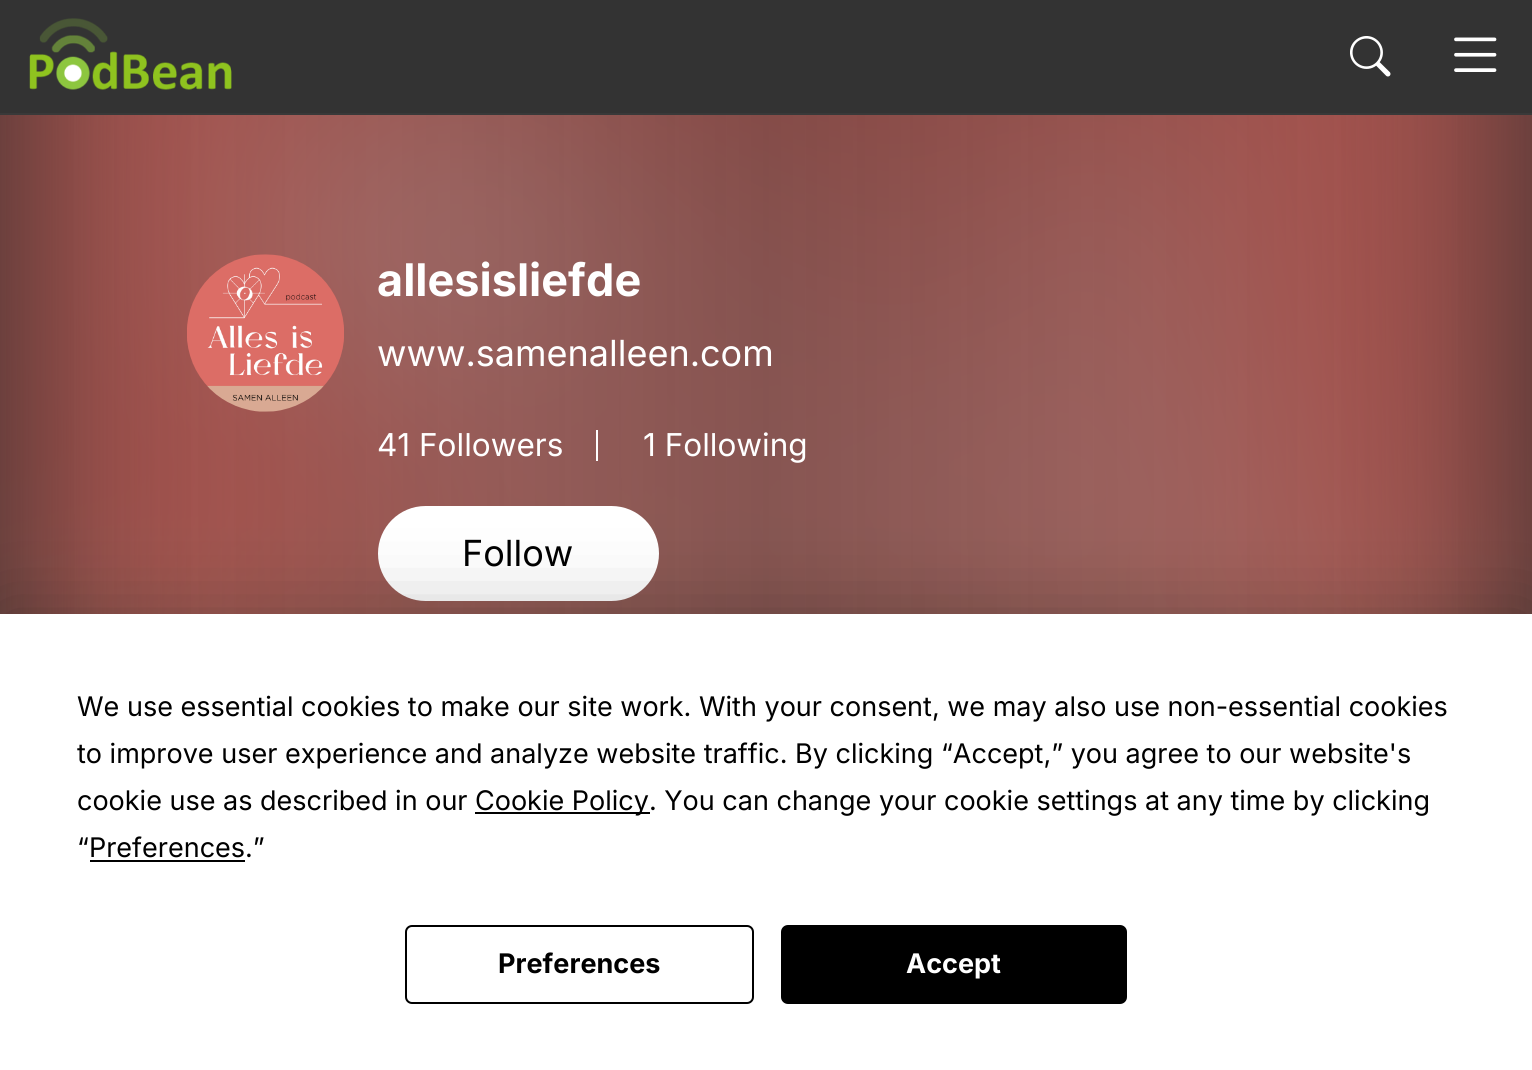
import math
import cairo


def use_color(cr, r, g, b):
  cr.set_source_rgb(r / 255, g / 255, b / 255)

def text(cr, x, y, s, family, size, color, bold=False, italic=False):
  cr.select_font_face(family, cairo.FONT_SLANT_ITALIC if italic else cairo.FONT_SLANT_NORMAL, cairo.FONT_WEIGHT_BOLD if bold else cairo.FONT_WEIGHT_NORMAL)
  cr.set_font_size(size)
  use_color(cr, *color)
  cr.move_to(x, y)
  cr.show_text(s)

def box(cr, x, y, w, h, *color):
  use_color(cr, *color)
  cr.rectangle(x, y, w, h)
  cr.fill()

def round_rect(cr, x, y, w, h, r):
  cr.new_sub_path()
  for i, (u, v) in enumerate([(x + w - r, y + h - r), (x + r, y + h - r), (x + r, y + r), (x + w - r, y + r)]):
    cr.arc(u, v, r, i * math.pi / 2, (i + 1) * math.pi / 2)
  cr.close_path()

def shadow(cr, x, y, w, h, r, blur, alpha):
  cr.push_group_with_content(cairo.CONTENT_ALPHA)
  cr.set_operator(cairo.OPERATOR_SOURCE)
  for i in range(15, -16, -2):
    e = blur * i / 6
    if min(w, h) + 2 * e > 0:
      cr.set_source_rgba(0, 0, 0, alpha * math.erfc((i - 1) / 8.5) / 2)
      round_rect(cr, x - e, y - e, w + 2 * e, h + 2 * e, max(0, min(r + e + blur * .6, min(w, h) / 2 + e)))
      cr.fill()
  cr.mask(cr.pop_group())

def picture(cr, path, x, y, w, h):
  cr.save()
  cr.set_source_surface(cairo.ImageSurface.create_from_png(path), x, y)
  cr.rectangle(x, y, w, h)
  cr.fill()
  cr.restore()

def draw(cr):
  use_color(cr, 51, 51, 51)
  cr.paint()
  box(cr, 0, 113, 1532, 2, 57, 57, 57)
  picture(cr, "img_01.png", 29, 18, 203, 72)
  picture(cr, "img_02.png", 1350, 36, 41, 41)
  picture(cr, "img_03.png", 1454, 37, 43, 35)
  picture(cr, "img_04.png", 0, 115, 1532, 499)
  gradient = cairo.LinearGradient(0, 428, 1532, 427)
  gradient.add_color_stop_rgba(0, 0, 0, 0, 0.2)
  gradient.add_color_stop_rgba(0.5, 0.09, 0.09, 0.09, 0.45)
  gradient.add_color_stop_rgba(1, 0, 0, 0, 0.2)
  cr.set_source(gradient)
  cr.rectangle(0, 115, 1532, 499)
  cr.fill()
  picture(cr, "img_05.png", 187, 254, 157, 158)
  box(cr, 596, 430, 2, 31, 255, 255, 255)
  round_rect(cr, 378, 506, 281, 95, 47.5)
  cr.fill()
  use_color(cr, 0, 0, 0)
  shadow(cr, 0, 614, 1532, 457, 0, 39.5, 0.25)
  box(cr, 0, 614, 1532, 456, 255, 255, 255)
  box(cr, 475, 812, 175, 2, 0, 0, 0)
  box(cr, 90, 860, 155, 2, 0, 0, 0)
  round_rect(cr, 406, 926, 347, 77, 6)
  cr.stroke()
  round_rect(cr, 782, 926, 344, 77, 6)
  cr.fill_preserve()
  cr.stroke()
  text(cr, 377, 296, "allesisliefde", "Inter", 45, (255, 255, 255), bold=True)
  text(cr, 377, 366, "www.samenalleen.com", "Inter", 36, (255, 255, 255))
  text(cr, 377, 456, "41 Followers", "Inter", 31.5, (255, 255, 255))
  text(cr, 643, 456, "1 Following", "Inter", 31.5, (255, 255, 255))
  text(cr, 462, 566, "Follow", "Inter", 36, (0, 0, 0))
  text(cr, 77, 716, "We use essential cookies to make our site work. With your consent, we may also use non-essential cookies", "Inter", 27, (0, 0, 0))
  text(cr, 77, 763, "to improve user experience and analyze website traffic. By clicking “Accept,” you agree to our website's", "Inter", 27, (0, 0, 0))
  text(cr, 77, 810, "cookie use as described in our", "Inter", 27, (0, 0, 0))
  text(cr, 475, 810, "Cookie Policy. You can change your cookie settings at any time by clicking", "Inter", 27, (0, 0, 0))
  text(cr, 77, 857, "“Preferences.”", "Inter", 27, (0, 0, 0))
  text(cr, 498, 973, "Preferences", "Inter", 27, (0, 0, 0), bold=True)
  text(cr, 906, 973, "Accept", "Inter", 27, (255, 255, 255), bold=True)


surface = cairo.ImageSurface(cairo.FORMAT_RGB24, 1532, 1070)
cr = cairo.Context(surface)
options = cairo.FontOptions()
options.set_hint_metrics(cairo.HINT_METRICS_OFF)
options.set_hint_style(cairo.HINT_STYLE_NONE)
cr.set_font_options(options)
cr.set_miter_limit(4)
draw(cr)
surface.write_to_png("out.png")
